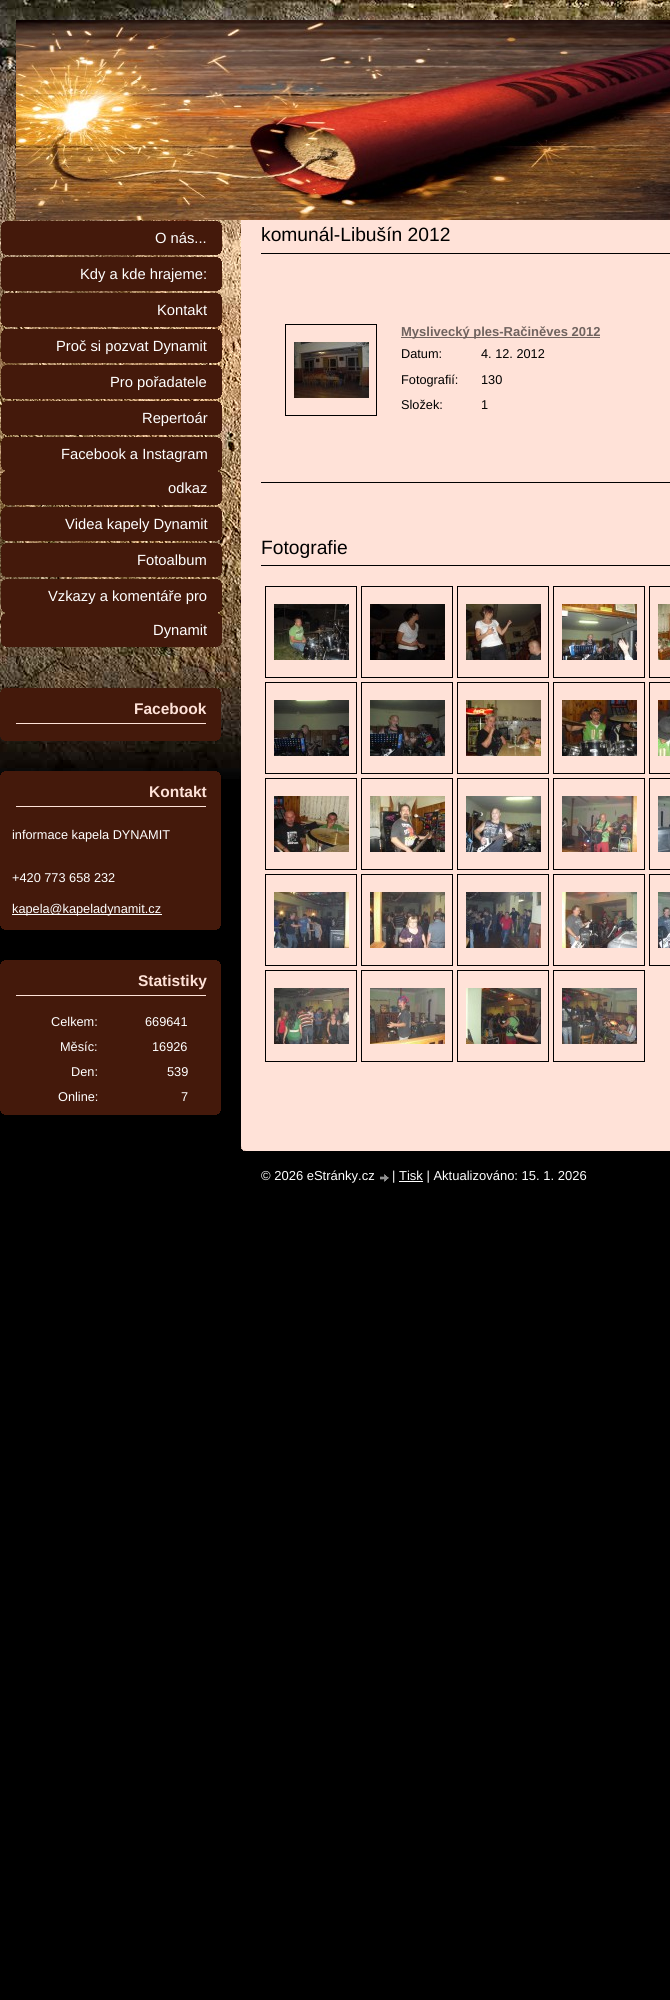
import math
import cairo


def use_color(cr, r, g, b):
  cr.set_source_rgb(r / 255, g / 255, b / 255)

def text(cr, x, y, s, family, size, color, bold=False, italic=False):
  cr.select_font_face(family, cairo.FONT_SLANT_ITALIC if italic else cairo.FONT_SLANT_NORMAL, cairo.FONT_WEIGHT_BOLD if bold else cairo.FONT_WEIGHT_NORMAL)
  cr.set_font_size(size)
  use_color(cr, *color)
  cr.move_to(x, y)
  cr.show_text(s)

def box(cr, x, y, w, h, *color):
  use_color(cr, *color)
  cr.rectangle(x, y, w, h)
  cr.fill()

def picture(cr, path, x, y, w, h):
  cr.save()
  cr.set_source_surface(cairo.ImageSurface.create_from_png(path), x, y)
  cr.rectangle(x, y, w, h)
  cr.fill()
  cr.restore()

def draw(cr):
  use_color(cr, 0, 0, 0)
  cr.paint()
  picture(cr, "img_01.png", 0, 0, 670, 779)
  box(cr, 241, 220, 429, 926, 255, 226, 216)
  picture(cr, "img_02.png", 16, 20, 654, 200)
  picture(cr, "img_03.png", 1, 221, 221, 34)
  picture(cr, "img_04.png", 1, 257, 221, 34)
  picture(cr, "img_05.png", 1, 293, 221, 34)
  picture(cr, "img_06.png", 1, 329, 221, 34)
  picture(cr, "img_07.png", 1, 365, 221, 34)
  picture(cr, "img_08.png", 1, 401, 221, 34)
  picture(cr, "img_09.png", 1, 437, 221, 68)
  picture(cr, "img_10.png", 1, 507, 221, 34)
  picture(cr, "img_11.png", 1, 543, 221, 34)
  picture(cr, "img_12.png", 1, 579, 221, 68)
  picture(cr, "img_13.png", 0, 736, 221, 5)
  box(cr, 0, 693, 221, 43, 68, 25, 11)
  box(cr, 16, 723, 190, 1, 255, 226, 216)
  picture(cr, "img_14.png", 0, 688, 221, 5)
  picture(cr, "img_15.png", 0, 925, 221, 5)
  box(cr, 0, 776, 221, 149, 68, 25, 11)
  box(cr, 16, 806, 190, 1, 255, 226, 216)
  picture(cr, "img_16.png", 0, 771, 221, 5)
  box(cr, 12, 914, 150, 1, 255, 255, 255)
  picture(cr, "img_15.png", 0, 1110, 221, 5)
  box(cr, 0, 965, 221, 145, 68, 25, 11)
  box(cr, 16, 995, 190, 1, 255, 226, 216)
  picture(cr, "img_17.png", 0, 960, 221, 5)
  box(cr, 261, 253, 409, 1, 0, 0, 0)
  box(cr, 261, 482, 409, 1, 0, 0, 0)
  cr.rectangle(285.5, 324.5, 91, 91)
  cr.set_line_width(1)
  cr.stroke()
  picture(cr, "img_18.png", 294, 342, 75, 56)
  box(cr, 401, 337, 199, 1, 112, 99, 95)
  box(cr, 261, 565, 409, 1, 0, 0, 0)
  cr.rectangle(265.5, 586.5, 91, 91)
  cr.stroke()
  picture(cr, "img_19.png", 274, 604, 75, 56)
  cr.rectangle(361.5, 586.5, 91, 91)
  cr.stroke()
  picture(cr, "img_20.png", 370, 604, 75, 56)
  cr.rectangle(457.5, 586.5, 91, 91)
  cr.stroke()
  picture(cr, "img_21.png", 466, 604, 75, 56)
  cr.rectangle(553.5, 586.5, 91, 91)
  cr.stroke()
  picture(cr, "img_22.png", 562, 604, 75, 56)
  cr.rectangle(649.5, 586.5, 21, 91)
  cr.stroke()
  picture(cr, "img_23.png", 658, 604, 12, 56)
  cr.rectangle(265.5, 682.5, 91, 91)
  cr.stroke()
  picture(cr, "img_24.png", 274, 700, 75, 56)
  cr.rectangle(361.5, 682.5, 91, 91)
  cr.stroke()
  picture(cr, "img_25.png", 370, 700, 75, 56)
  cr.rectangle(457.5, 682.5, 91, 91)
  cr.stroke()
  picture(cr, "img_26.png", 466, 700, 75, 56)
  cr.rectangle(553.5, 682.5, 91, 91)
  cr.stroke()
  picture(cr, "img_27.png", 562, 700, 75, 56)
  cr.rectangle(649.5, 682.5, 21, 91)
  cr.stroke()
  picture(cr, "img_28.png", 658, 700, 12, 56)
  cr.rectangle(265.5, 778.5, 91, 91)
  cr.stroke()
  picture(cr, "img_29.png", 274, 796, 75, 56)
  cr.rectangle(361.5, 778.5, 91, 91)
  cr.stroke()
  picture(cr, "img_30.png", 370, 796, 75, 56)
  cr.rectangle(457.5, 778.5, 91, 91)
  cr.stroke()
  picture(cr, "img_31.png", 466, 796, 75, 56)
  cr.rectangle(553.5, 778.5, 91, 91)
  cr.stroke()
  picture(cr, "img_32.png", 562, 796, 75, 56)
  cr.rectangle(649.5, 778.5, 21, 91)
  cr.stroke()
  picture(cr, "img_33.png", 658, 796, 12, 56)
  cr.rectangle(265.5, 874.5, 91, 91)
  cr.stroke()
  picture(cr, "img_34.png", 274, 892, 75, 56)
  cr.rectangle(361.5, 874.5, 91, 91)
  cr.stroke()
  picture(cr, "img_35.png", 370, 892, 75, 56)
  cr.rectangle(457.5, 874.5, 91, 91)
  cr.stroke()
  picture(cr, "img_36.png", 466, 892, 75, 56)
  cr.rectangle(553.5, 874.5, 91, 91)
  cr.stroke()
  picture(cr, "img_37.png", 562, 892, 75, 56)
  cr.rectangle(649.5, 874.5, 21, 91)
  cr.stroke()
  picture(cr, "img_38.png", 658, 892, 12, 56)
  cr.rectangle(265.5, 970.5, 91, 91)
  cr.stroke()
  picture(cr, "img_39.png", 274, 988, 75, 56)
  cr.rectangle(361.5, 970.5, 91, 91)
  cr.stroke()
  picture(cr, "img_40.png", 370, 988, 75, 56)
  cr.rectangle(457.5, 970.5, 91, 91)
  cr.stroke()
  picture(cr, "img_41.png", 466, 988, 75, 56)
  cr.rectangle(553.5, 970.5, 91, 91)
  cr.stroke()
  picture(cr, "img_42.png", 562, 988, 75, 56)
  picture(cr, "img_43.png", 241, 1146, 429, 5)
  picture(cr, "img_44.png", 380, 1174, 9, 8)
  box(cr, 399, 1181, 24, 1, 255, 255, 255)
  text(cr, 155, 243, "O nás...", "Liberation Sans", 14.75, (255, 255, 255))
  text(cr, 80, 279, "Kdy a kde hrajeme:", "Liberation Sans", 14.75, (255, 255, 255))
  text(cr, 157, 315, "Kontakt", "Liberation Sans", 14.75, (255, 255, 255))
  text(cr, 56, 351, "Proč si pozvat Dynamit", "Liberation Sans", 14.75, (255, 255, 255))
  text(cr, 110, 387, "Pro pořadatele", "Liberation Sans", 14.75, (255, 255, 255))
  text(cr, 142, 423, "Repertoár", "Liberation Sans", 14.75, (255, 255, 255))
  text(cr, 61, 459, "Facebook a Instagram", "Liberation Sans", 14.75, (255, 255, 255))
  text(cr, 168, 493, "odkaz", "Liberation Sans", 14.75, (255, 255, 255))
  text(cr, 65, 529, "Videa kapely Dynamit", "Liberation Sans", 14.75, (255, 255, 255))
  text(cr, 137, 565, "Fotoalbum", "Liberation Sans", 14.75, (255, 255, 255))
  text(cr, 48, 601, "Vzkazy a komentáře pro", "Liberation Sans", 14.75, (255, 255, 255))
  text(cr, 153, 635, "Dynamit", "Liberation Sans", 14.75, (255, 255, 255))
  text(cr, 134, 714, "Facebook", "Liberation Sans", 15.5, (255, 226, 216), bold=True)
  text(cr, 149, 797, "Kontakt", "Liberation Sans", 15.5, (255, 226, 216), bold=True)
  text(cr, 12, 839, "informace kapela DYNAMIT", "Liberation Sans", 12.75, (255, 255, 255))
  text(cr, 12, 882, "+420 773 658 232", "Liberation Sans", 12.75, (255, 255, 255))
  text(cr, 12, 913, "kapela@kapeladynamit.cz", "Liberation Sans", 12.75, (255, 255, 255))
  text(cr, 138, 986, "Statistiky", "Liberation Sans", 15.5, (255, 226, 216), bold=True)
  text(cr, 51, 1026, "Celkem:", "Liberation Sans", 12.75, (255, 255, 255))
  text(cr, 145, 1026, "669641", "Liberation Sans", 12.75, (255, 255, 255))
  text(cr, 60, 1051, "Měsíc:", "Liberation Sans", 12.75, (255, 255, 255))
  text(cr, 152, 1051, "16926", "Liberation Sans", 12.75, (255, 255, 255))
  text(cr, 71, 1076, "Den:", "Liberation Sans", 12.75, (255, 255, 255))
  text(cr, 167, 1076, "539", "Liberation Sans", 12.75, (255, 255, 255))
  text(cr, 58, 1101, "Online:", "Liberation Sans", 12.75, (255, 255, 255))
  text(cr, 181, 1101, "7", "Liberation Sans", 12.75, (255, 255, 255))
  text(cr, 261, 241, "komunál-Libušín 2012", "Liberation Sans", 19.25, (0, 0, 0))
  text(cr, 401, 336, "Myslivecký ples-Račiněves 2012", "Liberation Sans", 13, (112, 99, 95), bold=True)
  text(cr, 401, 358, "Datum:", "Liberation Sans", 12.75, (0, 0, 0))
  text(cr, 481, 358, "4. 12. 2012", "Liberation Sans", 12.75, (0, 0, 0))
  text(cr, 401, 384, "Fotografií:", "Liberation Sans", 12.75, (0, 0, 0))
  text(cr, 481, 384, "130", "Liberation Sans", 12.75, (0, 0, 0))
  text(cr, 401, 409, "Složek:", "Liberation Sans", 12.75, (0, 0, 0))
  text(cr, 481, 409, "1", "Liberation Sans", 12.75, (0, 0, 0))
  text(cr, 261, 554, "Fotografie", "Liberation Sans", 19.25, (0, 0, 0))
  text(cr, 261, 1180, "© 2026 eStránky.cz", "Liberation Sans", 13, (255, 255, 255))
  text(cr, 392, 1180, "| Tisk | Aktualizováno: 15. 1. 2026", "Liberation Sans", 13, (255, 255, 255))


surface = cairo.ImageSurface(cairo.FORMAT_RGB24, 670, 2000)
cr = cairo.Context(surface)
options = cairo.FontOptions()
options.set_hint_metrics(cairo.HINT_METRICS_OFF)
options.set_hint_style(cairo.HINT_STYLE_NONE)
cr.set_font_options(options)
cr.set_miter_limit(4)
draw(cr)
surface.write_to_png("out.png")
